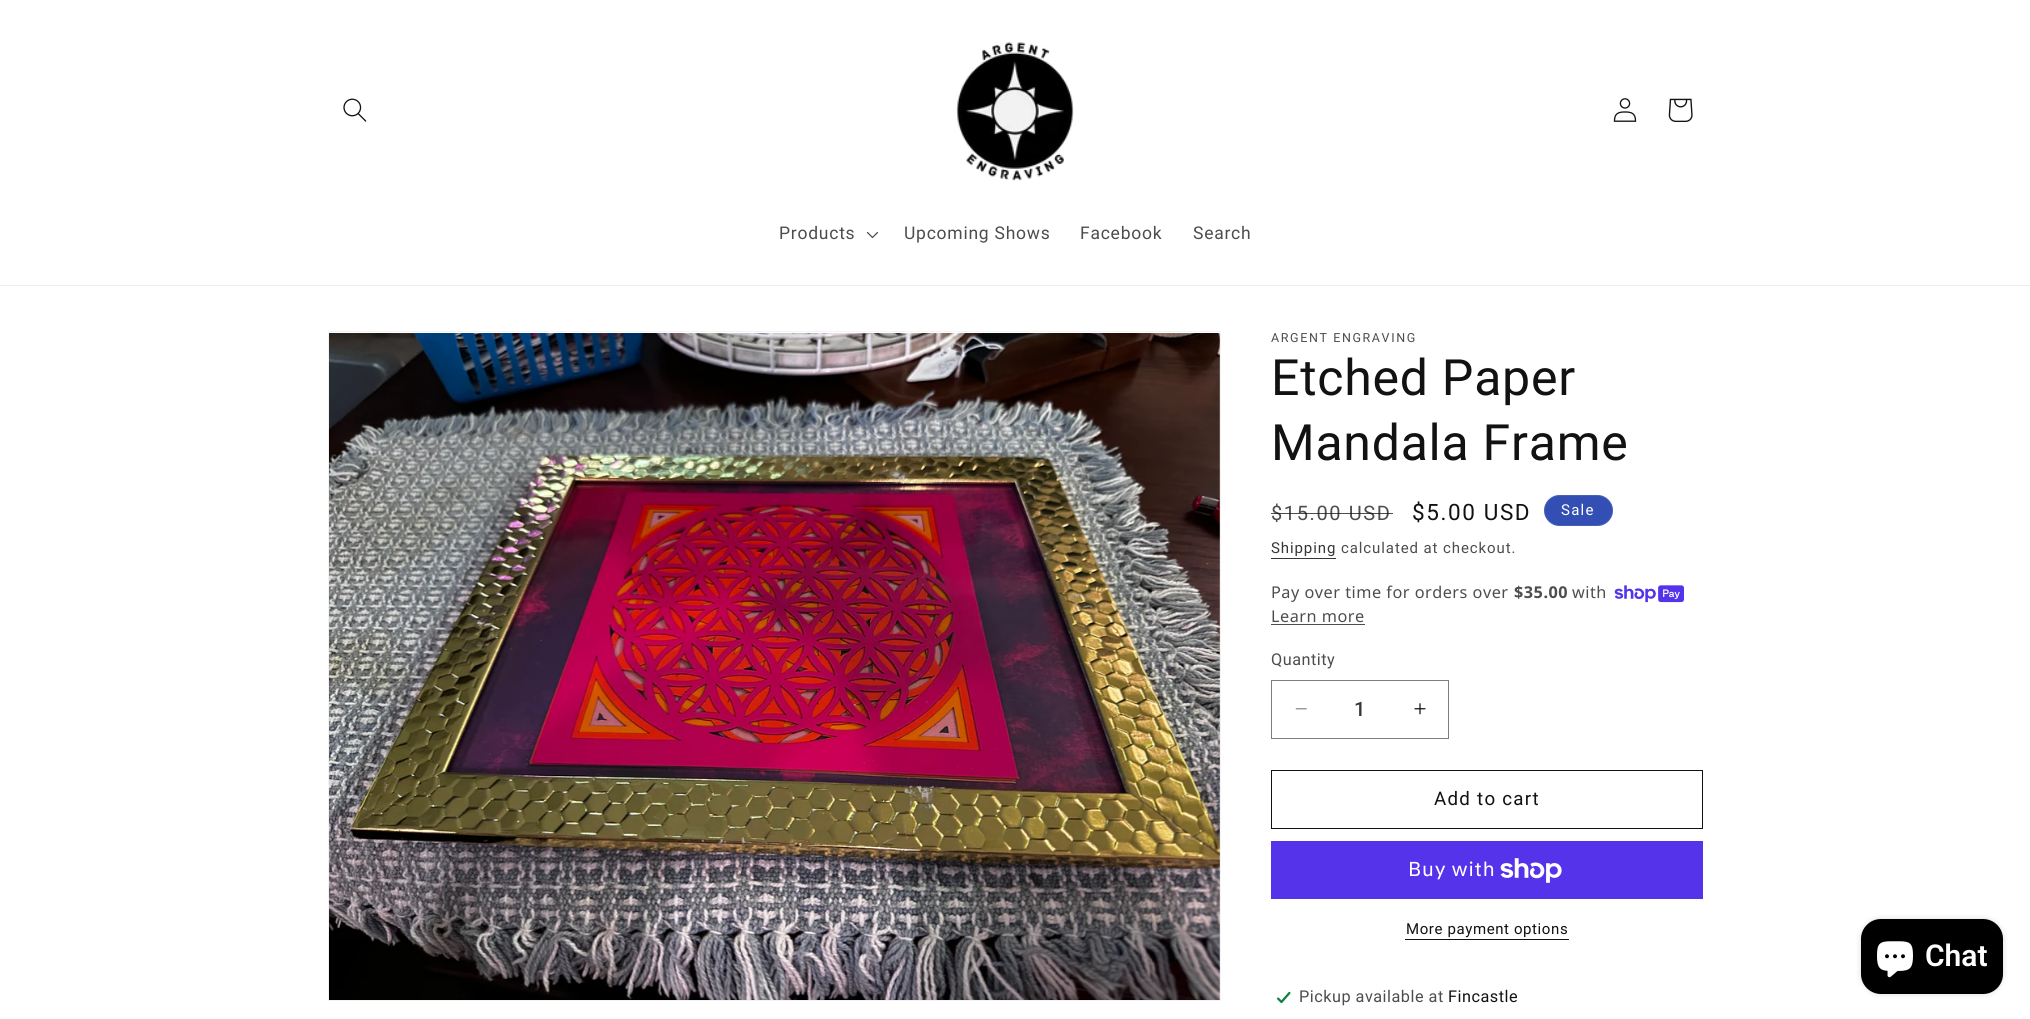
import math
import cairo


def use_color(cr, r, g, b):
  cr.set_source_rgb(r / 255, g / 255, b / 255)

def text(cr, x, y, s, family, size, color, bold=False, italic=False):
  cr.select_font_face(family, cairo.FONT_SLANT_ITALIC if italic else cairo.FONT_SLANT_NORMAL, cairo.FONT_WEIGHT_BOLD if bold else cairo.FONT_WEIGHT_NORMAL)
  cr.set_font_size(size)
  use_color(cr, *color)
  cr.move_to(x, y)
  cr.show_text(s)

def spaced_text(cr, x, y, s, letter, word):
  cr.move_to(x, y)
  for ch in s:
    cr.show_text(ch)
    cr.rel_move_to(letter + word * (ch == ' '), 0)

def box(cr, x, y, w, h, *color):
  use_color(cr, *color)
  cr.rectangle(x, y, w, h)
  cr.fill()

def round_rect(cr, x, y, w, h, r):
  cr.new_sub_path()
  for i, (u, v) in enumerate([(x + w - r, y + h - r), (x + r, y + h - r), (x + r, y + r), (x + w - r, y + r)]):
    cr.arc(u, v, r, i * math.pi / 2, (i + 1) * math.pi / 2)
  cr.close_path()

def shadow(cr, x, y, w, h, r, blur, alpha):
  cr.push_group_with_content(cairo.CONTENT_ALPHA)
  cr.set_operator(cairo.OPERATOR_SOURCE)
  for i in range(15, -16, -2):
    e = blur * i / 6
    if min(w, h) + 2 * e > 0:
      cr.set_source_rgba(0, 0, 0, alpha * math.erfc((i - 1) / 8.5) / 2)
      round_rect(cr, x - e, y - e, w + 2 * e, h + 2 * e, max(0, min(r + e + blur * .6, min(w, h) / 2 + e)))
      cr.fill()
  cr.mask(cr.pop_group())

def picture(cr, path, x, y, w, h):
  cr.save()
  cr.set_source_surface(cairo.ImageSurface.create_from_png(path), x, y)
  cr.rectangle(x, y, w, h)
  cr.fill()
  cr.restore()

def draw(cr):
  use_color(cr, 255, 255, 255)
  cr.paint()
  box(cr, 0, 285, 2030, 1, 236, 236, 236)
  picture(cr, "img_01.png", 343, 98, 24, 24)
  picture(cr, "img_02.png", 956, 42, 118, 139)
  picture(cr, "img_03.png", 1613, 98, 24, 24)
  picture(cr, "img_04.png", 1668, 98, 25, 24)
  picture(cr, "img_05.png", 866, 231, 13, 8)
  cr.rectangle(328.5, 331.5, 892, 669)
  use_color(cr, 243, 243, 243)
  cr.set_line_width(1)
  cr.stroke()
  picture(cr, "img_06.png", 329, 333, 891, 667)
  use_color(cr, 51, 79, 180)
  round_rect(cr, 1544, 495, 69, 31, 15.5)
  cr.fill()
  round_rect(cr, 1544.5, 495.5, 68, 30, 15)
  cr.set_source_rgba(1, 1, 1, 0.1)
  cr.stroke()
  box(cr, 1271, 558, 65, 1, 54, 54, 54)
  picture(cr, "img_07.png", 1614, 585, 70, 18)
  box(cr, 1271, 624, 94, 1, 77, 77, 77)
  picture(cr, "img_08.png", 1295, 708, 12, 2)
  picture(cr, "img_09.png", 1414, 703, 12, 12)
  cr.rectangle(1271.5, 680.5, 177, 58)
  use_color(cr, 125, 125, 125)
  cr.stroke()
  cr.rectangle(1271.5, 770.5, 431, 58)
  use_color(cr, 18, 18, 18)
  cr.stroke()
  box(cr, 1271, 841, 432, 58, 84, 51, 235)
  picture(cr, "img_10.png", 1500, 858, 62, 25)
  box(cr, 1405, 939, 164, 1, 18, 18, 18)
  picture(cr, "img_11.png", 1276, 991, 15, 13)
  use_color(cr, 0, 0, 0)
  shadow(cr, 1861, 919, 142, 75, 20, 3, 0.15)
  use_color(cr, 0, 0, 0)
  round_rect(cr, 1861, 919, 142, 75, 20)
  cr.fill()
  picture(cr, "img_12.png", 1877, 941, 36, 37)
  cr.select_font_face("Roboto")
  cr.set_font_size(17.5)
  use_color(cr, 77, 77, 77)
  spaced_text(cr, 779, 239, "Products", 0.75, 0)
  spaced_text(cr, 904, 239, "Upcoming Shows", 0.75, 0)
  spaced_text(cr, 1080, 239, "Facebook", 0.75, 0)
  spaced_text(cr, 1193, 239, "Search", 0.75, 0)
  cr.set_font_size(12.5)
  spaced_text(cr, 1271, 342, "ARGENT ENGRAVING", 1.6, 0)
  cr.set_font_size(50)
  use_color(cr, 18, 18, 18)
  spaced_text(cr, 1271, 395, "Etched Paper", 0.75, 0)
  spaced_text(cr, 1271, 460, "Mandala Frame", 0.75, 0)
  cr.set_font_size(20)
  use_color(cr, 77, 77, 77)
  spaced_text(cr, 1271, 520, "$15.00 USD", 1.6, 0)
  cr.set_source_rgba(0.071, 0.071, 0.071, 0.75)
  cr.rectangle(1271, 513, 122, 1)
  cr.fill()
  cr.set_font_size(22.5)
  use_color(cr, 18, 18, 18)
  spaced_text(cr, 1412, 520, "$5.00 USD", 1.6, 0)
  cr.set_font_size(15)
  use_color(cr, 255, 255, 255)
  spaced_text(cr, 1561, 515, "Sale", 1.25, 0)
  use_color(cr, 54, 54, 54)
  spaced_text(cr, 1271, 553, "Shipping", 0.9, 0)
  use_color(cr, 77, 77, 77)
  spaced_text(cr, 1341, 553, "calculated at checkout.", 0.9, 0)
  cr.select_font_face("Noto Sans")
  cr.set_font_size(16.25)
  spaced_text(cr, 1271, 598, "Pay over time for orders over", 0.5, 0)
  cr.select_font_face("Noto Sans", cairo.FONT_SLANT_NORMAL, cairo.FONT_WEIGHT_BOLD)
  spaced_text(cr, 1514, 598, "$35.00", 0.5, 0)
  cr.select_font_face("Noto Sans")
  spaced_text(cr, 1572, 598, "with", 0.5, 0)
  spaced_text(cr, 1271, 622, "Learn more", 0.5, 0)
  cr.select_font_face("Roboto")
  spaced_text(cr, 1271, 665, "Quantity", 0.5, 0)
  text(cr, 1354, 716, "1", "Roboto Medium", 20, (54, 54, 54))
  cr.select_font_face("Roboto")
  cr.set_font_size(18.75)
  use_color(cr, 18, 18, 18)
  spaced_text(cr, 1434, 805, "Add to cart", 1.25, 0)
  cr.select_font_face("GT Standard")
  cr.set_font_size(20)
  use_color(cr, 255, 255, 255)
  spaced_text(cr, 1408, 876, "Buy with", 0.75, 0)
  cr.select_font_face("Roboto")
  cr.set_font_size(15)
  use_color(cr, 18, 18, 18)
  spaced_text(cr, 1406, 934, "More payment options", 0.6, 0)
  cr.set_font_size(16.25)
  use_color(cr, 77, 77, 77)
  spaced_text(cr, 1299, 1002, "Pickup available at", 0.5, 0)
  use_color(cr, 18, 18, 18)
  spaced_text(cr, 1448, 1002, "Fincastle", 0.5, 0)
  text(cr, 1925, 966, "Chat", "Roboto SemiBold", 30, (255, 255, 255))


surface = cairo.ImageSurface(cairo.FORMAT_RGB24, 2030, 1019)
cr = cairo.Context(surface)
options = cairo.FontOptions()
options.set_hint_metrics(cairo.HINT_METRICS_OFF)
options.set_hint_style(cairo.HINT_STYLE_NONE)
cr.set_font_options(options)
cr.set_miter_limit(4)
draw(cr)
surface.write_to_png("out.png")
